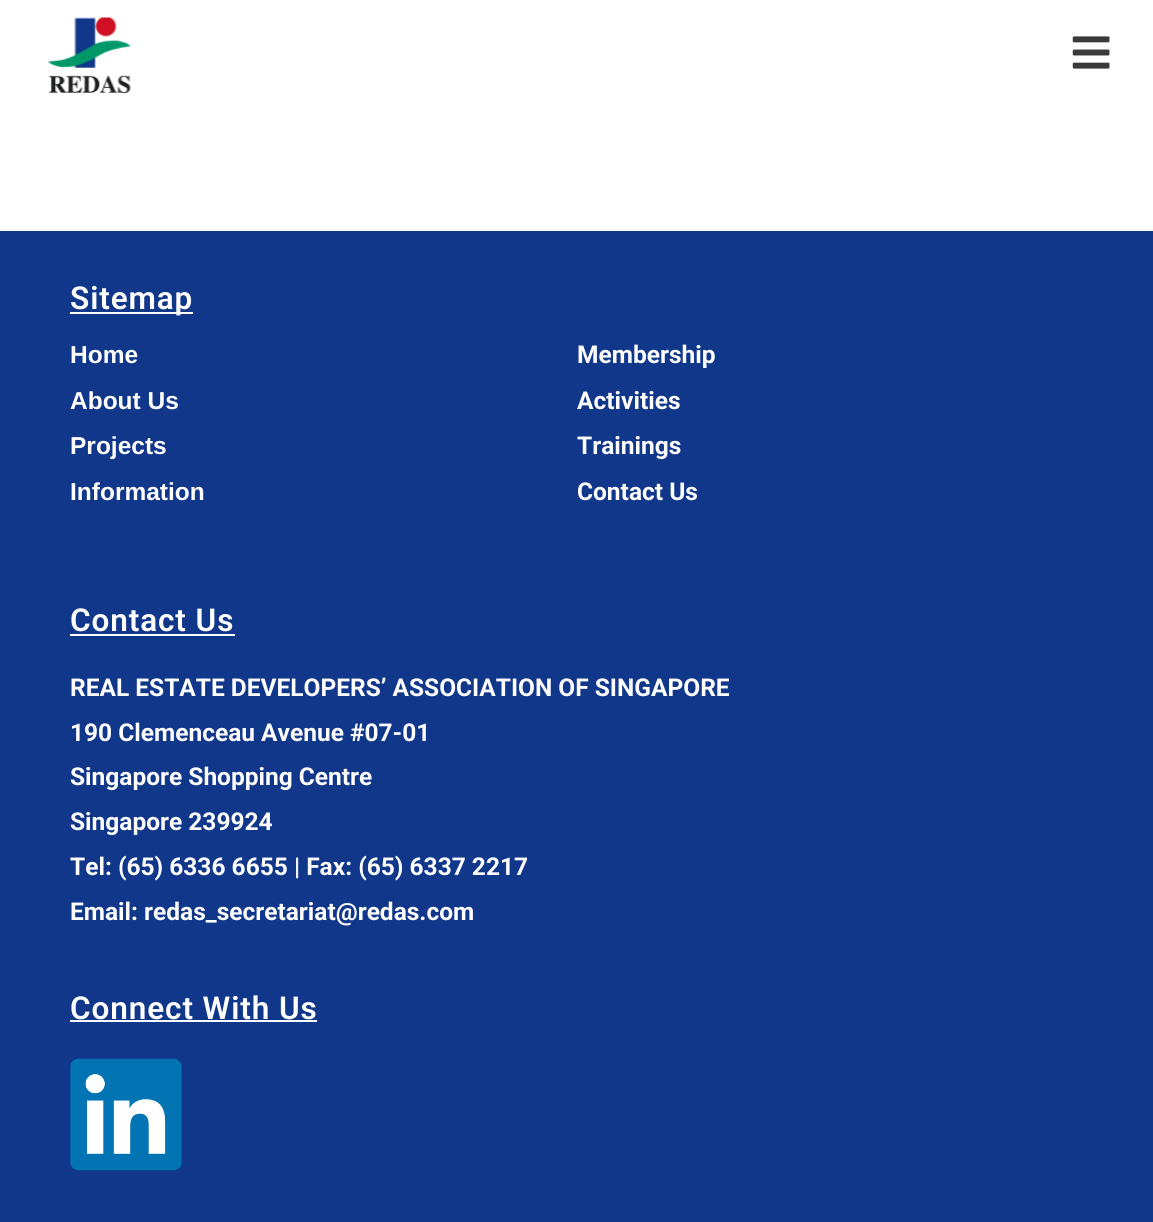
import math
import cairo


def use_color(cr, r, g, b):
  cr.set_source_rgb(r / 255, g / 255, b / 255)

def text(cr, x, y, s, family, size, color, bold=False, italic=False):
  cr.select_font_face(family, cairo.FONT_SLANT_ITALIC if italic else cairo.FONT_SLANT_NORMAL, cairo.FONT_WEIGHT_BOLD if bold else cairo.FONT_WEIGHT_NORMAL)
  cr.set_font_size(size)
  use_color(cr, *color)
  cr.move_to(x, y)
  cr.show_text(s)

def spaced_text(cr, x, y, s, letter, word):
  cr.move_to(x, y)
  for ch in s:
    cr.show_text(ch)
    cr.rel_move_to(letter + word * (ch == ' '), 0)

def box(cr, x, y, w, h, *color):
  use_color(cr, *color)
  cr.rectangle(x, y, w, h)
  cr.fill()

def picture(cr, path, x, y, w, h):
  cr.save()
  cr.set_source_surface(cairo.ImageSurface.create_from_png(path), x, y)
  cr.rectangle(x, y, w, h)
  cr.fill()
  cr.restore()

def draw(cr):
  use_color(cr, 255, 255, 255)
  cr.paint()
  picture(cr, "img_01.png", 48, 17, 83, 77)
  picture(cr, "img_02.png", 1072, 36, 38, 33)
  box(cr, 0, 231, 1153, 991, 17, 55, 138)
  box(cr, 70, 312, 123, 2, 255, 255, 255)
  box(cr, 70, 634, 165, 2, 255, 255, 255)
  box(cr, 70, 1020, 247, 2, 255, 255, 255)
  picture(cr, "img_03.png", 70, 1058, 112, 113)
  cr.select_font_face("Roboto SemiBold")
  cr.set_font_size(31.5)
  spaced_text(cr, 70, 309, "Sitemap", 0.9, 0)
  text(cr, 70, 363, "Home", "Liberation Sans", 24.5, (255, 255, 255), bold=True)
  text(cr, 70, 409, "About Us", "Liberation Sans", 24.5, (255, 255, 255), bold=True)
  text(cr, 70, 454, "Projects", "Liberation Sans", 24.5, (255, 255, 255), bold=True)
  text(cr, 70, 500, "Information", "Liberation Sans", 24.5, (255, 255, 255), bold=True)
  text(cr, 577, 363, "Membership", "Roboto", 24.5, (255, 255, 255), bold=True)
  text(cr, 577, 409, "Activities", "Roboto", 24.5, (255, 255, 255), bold=True)
  text(cr, 577, 454, "Trainings", "Roboto", 24.5, (255, 255, 255), bold=True)
  text(cr, 577, 500, "Contact Us", "Roboto", 24.5, (255, 255, 255), bold=True)
  cr.select_font_face("Roboto SemiBold")
  cr.set_font_size(31.5)
  spaced_text(cr, 70, 631, "Contact Us", 0.9, 0)
  text(cr, 70, 696, "REAL ESTATE DEVELOPERS’ ASSOCIATION OF SINGAPORE", "Roboto", 24.5, (255, 255, 255), bold=True)
  text(cr, 70, 741, "190 Clemenceau Avenue #07-01", "Roboto", 24.5, (255, 255, 255), bold=True)
  text(cr, 70, 785, "Singapore Shopping Centre", "Roboto", 24.5, (255, 255, 255), bold=True)
  text(cr, 70, 830, "Singapore 239924", "Roboto", 24.5, (255, 255, 255), bold=True)
  text(cr, 70, 875, "Tel: (65) 6336 6655 | Fax: (65) 6337 2217", "Roboto", 24.5, (255, 255, 255), bold=True)
  text(cr, 70, 920, "Email: redas_secretariat@redas.com", "Roboto", 24.5, (255, 255, 255), bold=True)
  cr.select_font_face("Roboto SemiBold")
  cr.set_font_size(31.5)
  spaced_text(cr, 70, 1019, "Connect With Us", 0.9, 0)


surface = cairo.ImageSurface(cairo.FORMAT_RGB24, 1153, 1222)
cr = cairo.Context(surface)
options = cairo.FontOptions()
options.set_hint_metrics(cairo.HINT_METRICS_OFF)
options.set_hint_style(cairo.HINT_STYLE_NONE)
cr.set_font_options(options)
cr.set_miter_limit(4)
draw(cr)
surface.write_to_png("out.png")
